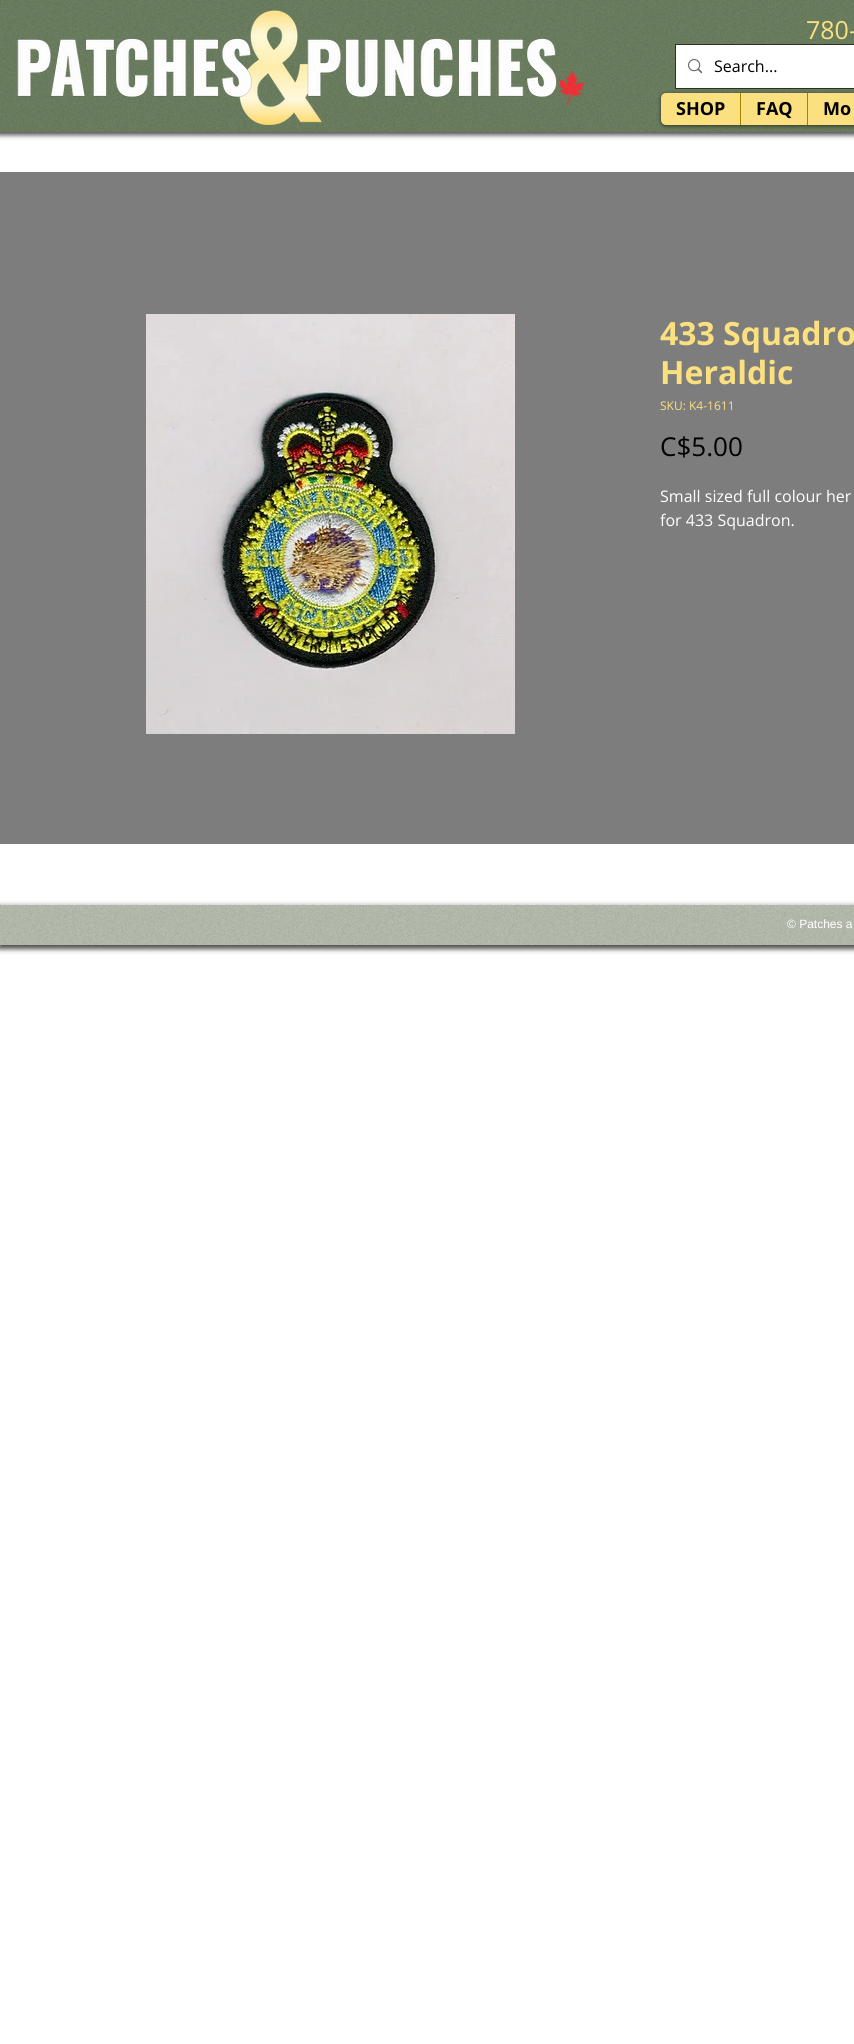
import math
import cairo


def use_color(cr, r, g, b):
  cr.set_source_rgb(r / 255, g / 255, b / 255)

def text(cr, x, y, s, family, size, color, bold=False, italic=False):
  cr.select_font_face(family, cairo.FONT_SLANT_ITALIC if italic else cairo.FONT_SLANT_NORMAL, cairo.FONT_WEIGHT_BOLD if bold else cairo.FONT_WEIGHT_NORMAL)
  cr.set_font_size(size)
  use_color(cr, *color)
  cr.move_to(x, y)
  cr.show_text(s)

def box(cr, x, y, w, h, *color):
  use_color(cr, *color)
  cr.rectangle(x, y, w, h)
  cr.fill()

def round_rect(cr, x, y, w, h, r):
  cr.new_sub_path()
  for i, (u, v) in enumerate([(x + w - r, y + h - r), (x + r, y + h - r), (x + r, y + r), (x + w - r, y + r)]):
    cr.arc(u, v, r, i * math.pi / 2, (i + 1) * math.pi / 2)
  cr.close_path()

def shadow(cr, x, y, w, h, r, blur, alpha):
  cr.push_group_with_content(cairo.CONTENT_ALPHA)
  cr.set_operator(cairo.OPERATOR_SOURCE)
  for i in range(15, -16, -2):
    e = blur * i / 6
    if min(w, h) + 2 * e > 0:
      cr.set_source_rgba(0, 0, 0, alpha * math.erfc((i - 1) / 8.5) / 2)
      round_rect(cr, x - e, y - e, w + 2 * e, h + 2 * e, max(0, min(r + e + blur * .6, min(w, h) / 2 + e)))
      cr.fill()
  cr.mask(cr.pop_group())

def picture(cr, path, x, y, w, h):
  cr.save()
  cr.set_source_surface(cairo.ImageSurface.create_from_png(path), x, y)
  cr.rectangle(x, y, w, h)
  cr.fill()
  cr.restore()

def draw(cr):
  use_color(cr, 255, 255, 255)
  cr.paint()
  use_color(cr, 0, 0, 0)
  shadow(cr, -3, -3, 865, 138, 0, 2.5, 0.7)
  box(cr, 0, 0, 854, 132, 106, 125, 94)
  picture(cr, "img_01.png", 0, 0, 854, 132)
  picture(cr, "img_02.png", 17, 10, 568, 115)
  cr.rectangle(675.5, 44.5, 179, 44)
  cr.set_source_rgba(0, 0, 0, 0.6)
  cr.set_line_width(1)
  cr.stroke()
  box(cr, 676, 45, 178, 43, 255, 255, 255)
  picture(cr, "img_03.png", 688, 59, 14, 15)
  use_color(cr, 0, 0, 0)
  shadow(cr, 661, 94, 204, 32, 5, 2, 0.6)
  use_color(cr, 251, 224, 127)
  round_rect(cr, 661, 93, 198, 32, 5)
  cr.fill()
  box(cr, 740, 93, 1, 32, 166, 130, 1)
  box(cr, 807, 93, 1, 32, 166, 130, 1)
  box(cr, 0, 172, 854, 672, 125, 125, 125)
  picture(cr, "img_04.png", 146, 314, 369, 420)
  box(cr, 0, 905, 854, 40, 181, 188, 174)
  box(cr, 0, 904, 854, 1, 225, 228, 222)
  cr.save()
  cr.set_fill_rule(cairo.FILL_RULE_EVEN_ODD)
  cr.new_path()
  cr.move_to(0, 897)
  cr.line_to(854, 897)
  cr.line_to(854, 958)
  cr.line_to(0, 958)
  cr.close_path()
  cr.move_to(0, 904)
  cr.line_to(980, 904)
  cr.line_to(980, 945)
  cr.line_to(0, 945)
  cr.close_path()
  cr.clip()
  use_color(cr, 0, 0, 0)
  shadow(cr, -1, 906, 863, 43, 0, 2.5, 0.7)
  cr.restore()
  picture(cr, "img_05.png", 0, 904, 854, 41)
  text(cr, 806, 39, "780-", "Open Sans", 25, (251, 224, 127))
  text(cr, 714, 72, "Search...", "Open Sans", 16, (0, 0, 0))
  text(cr, 676, 115, "SHOP", "Open Sans", 18, (0, 0, 0), bold=True)
  text(cr, 756, 115, "FAQ", "Open Sans", 18, (0, 0, 0), bold=True)
  text(cr, 823, 115, "Mo", "Open Sans", 18, (0, 0, 0), bold=True)
  text(cr, 660, 345, "433 Squadro", "Open Sans", 32, (251, 224, 127), bold=True)
  text(cr, 660, 384, "Heraldic", "Open Sans", 32, (251, 224, 127), bold=True)
  text(cr, 660, 410, "SKU: K4-1611", "Open Sans", 12, (251, 224, 127))
  text(cr, 660, 456, "C$5.00", "Open Sans", 26, (0, 0, 0))
  text(cr, 660, 502, "Small sized full colour her", "Open Sans", 16, (255, 255, 255))
  text(cr, 660, 526, "for 433 Squadron.", "Open Sans", 16, (255, 255, 255))
  text(cr, 787, 928, "© Patches a", "Liberation Sans", 12, (255, 255, 255))


surface = cairo.ImageSurface(cairo.FORMAT_RGB24, 854, 2044)
cr = cairo.Context(surface)
options = cairo.FontOptions()
options.set_hint_metrics(cairo.HINT_METRICS_OFF)
options.set_hint_style(cairo.HINT_STYLE_NONE)
cr.set_font_options(options)
cr.set_miter_limit(4)
draw(cr)
surface.write_to_png("out.png")
